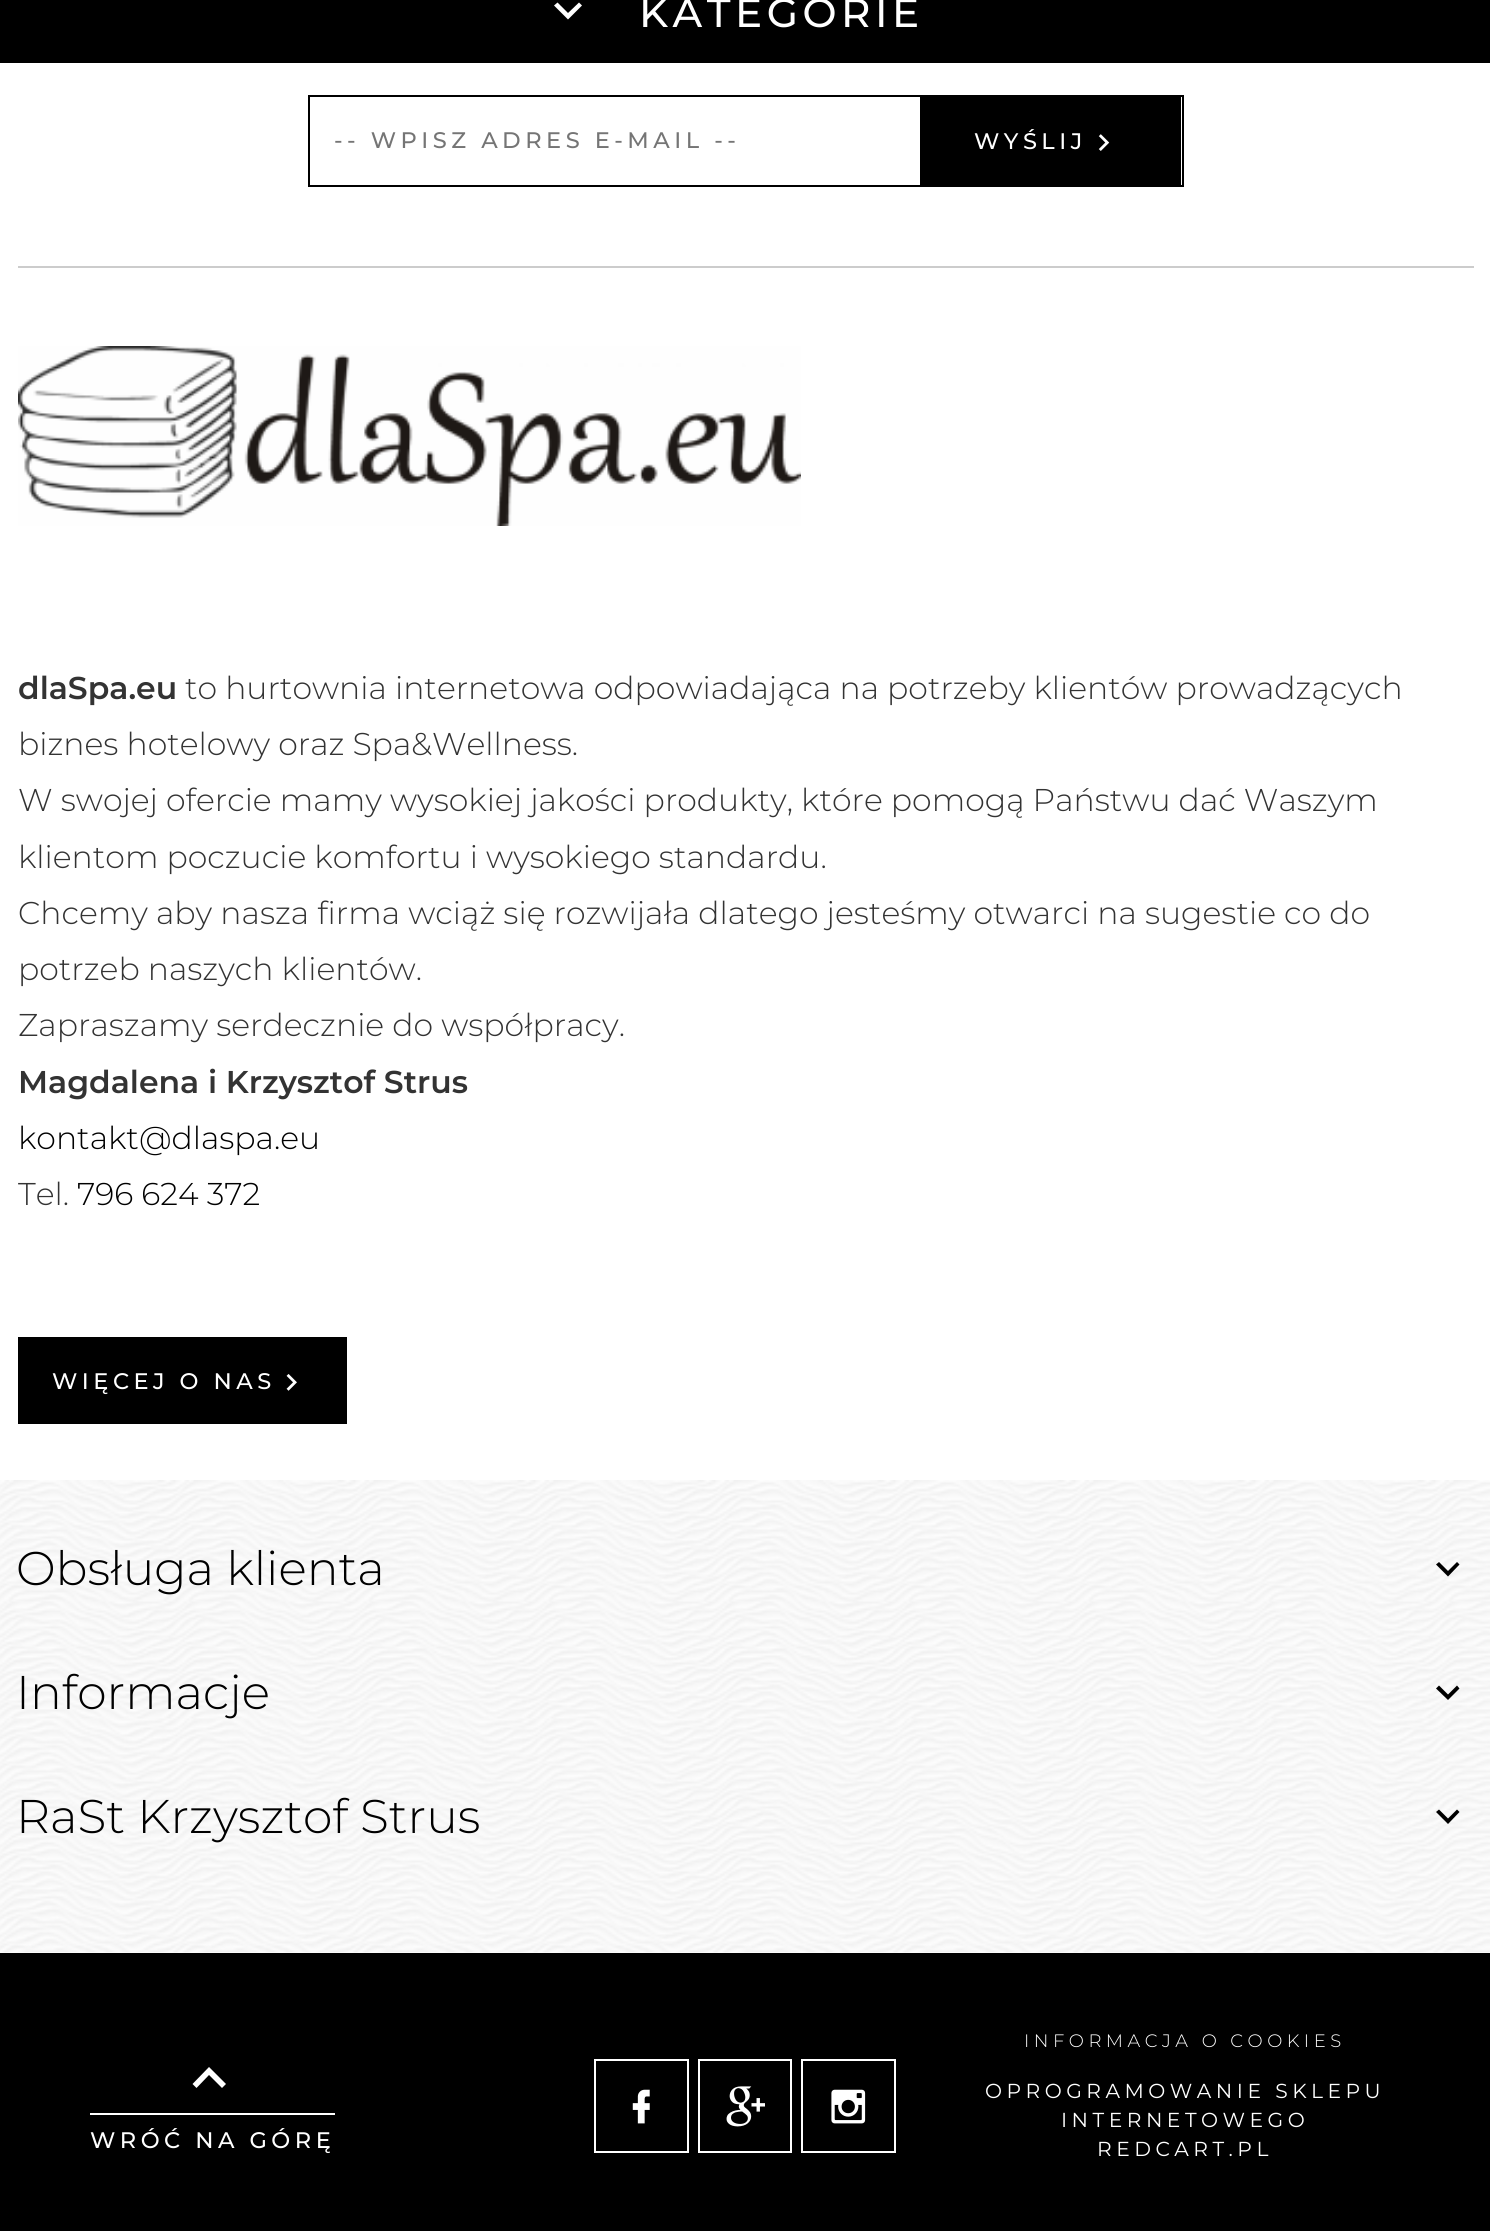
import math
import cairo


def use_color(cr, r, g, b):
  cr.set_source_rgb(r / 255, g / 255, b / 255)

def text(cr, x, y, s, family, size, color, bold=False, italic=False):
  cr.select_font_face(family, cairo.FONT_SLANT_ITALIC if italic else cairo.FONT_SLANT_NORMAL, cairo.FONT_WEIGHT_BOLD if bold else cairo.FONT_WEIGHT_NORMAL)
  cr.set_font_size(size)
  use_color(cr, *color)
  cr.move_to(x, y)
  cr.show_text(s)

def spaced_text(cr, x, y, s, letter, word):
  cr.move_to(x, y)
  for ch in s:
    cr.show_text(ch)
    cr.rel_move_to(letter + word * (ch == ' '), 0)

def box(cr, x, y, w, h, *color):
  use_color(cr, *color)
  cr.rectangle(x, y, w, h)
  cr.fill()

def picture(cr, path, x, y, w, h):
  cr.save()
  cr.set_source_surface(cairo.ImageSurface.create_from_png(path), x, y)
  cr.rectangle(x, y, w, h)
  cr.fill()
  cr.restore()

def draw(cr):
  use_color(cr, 255, 255, 255)
  cr.paint()
  box(cr, 0, 0, 1490, 63, 0, 0, 0)
  use_color(cr, 255, 255, 255)
  cr.new_path()
  cr.move_to(557.5, 2.5)
  cr.line_to(568, 13)
  cr.line_to(579, 2.5)
  cr.line_to(582, 5.5)
  cr.line_to(568, 19.5)
  cr.line_to(554, 5.5)
  cr.close_path()
  cr.fill()
  box(cr, 18, 266, 1456, 2, 204, 204, 204)
  cr.rectangle(309, 96, 874, 90)
  use_color(cr, 0, 0, 0)
  cr.stroke()
  box(cr, 920, 97, 261, 88, 0, 0, 0)
  picture(cr, "img_01.png", 1098, 134, 12, 17)
  picture(cr, "img_02.png", 18, 346, 783, 180)
  box(cr, 18, 1337, 329, 87, 0, 0, 0)
  picture(cr, "img_03.png", 286, 1374, 11, 17)
  picture(cr, "img_04.png", 0, 1480, 1490, 473)
  cr.new_path()
  cr.move_to(1439, 1562)
  cr.line_to(1448, 1571)
  cr.line_to(1457, 1562)
  cr.line_to(1459.5, 1564.5)
  cr.line_to(1448, 1576.5)
  cr.line_to(1436, 1564.5)
  cr.close_path()
  cr.fill()
  cr.new_path()
  cr.move_to(1439, 1685.5)
  cr.line_to(1448, 1694.5)
  cr.line_to(1457, 1685.5)
  cr.line_to(1459.5, 1688.5)
  cr.line_to(1448, 1700)
  cr.line_to(1436, 1688.5)
  cr.close_path()
  cr.fill()
  cr.new_path()
  cr.move_to(1439, 1809.5)
  cr.line_to(1448, 1818.5)
  cr.line_to(1457, 1809.5)
  cr.line_to(1459.5, 1812)
  cr.line_to(1448, 1824)
  cr.line_to(1436, 1812)
  cr.close_path()
  cr.fill()
  box(cr, 0, 1953, 1490, 278, 0, 0, 0)
  use_color(cr, 255, 255, 255)
  cr.new_path()
  cr.move_to(196.5, 2088)
  cr.line_to(209, 2075)
  cr.line_to(222, 2088)
  cr.line_to(226, 2084)
  cr.line_to(209, 2067)
  cr.line_to(192.5, 2084)
  cr.close_path()
  cr.fill()
  box(cr, 90, 2113, 245, 2, 255, 255, 255)
  cr.rectangle(595, 2060, 93, 92)
  cr.stroke()
  picture(cr, "img_05.png", 632, 2089, 18, 35)
  cr.rectangle(699, 2060, 92, 92)
  cr.stroke()
  picture(cr, "img_06.png", 726, 2086, 39, 41)
  cr.rectangle(802, 2060, 93, 92)
  cr.stroke()
  picture(cr, "img_07.png", 831, 2089, 35, 35)
  cr.select_font_face("Montserrat Medium")
  cr.set_font_size(40.5)
  spaced_text(cr, 639, 27, "KATEGORIE", 4.5, 0)
  cr.set_font_size(22.5)
  use_color(cr, 117, 117, 117)
  spaced_text(cr, 334, 148, "-- WPISZ ADRES E-MAIL --", 4.5, 0)
  use_color(cr, 255, 255, 255)
  spaced_text(cr, 974, 149, "WYŚLIJ", 4.5, 0)
  text(cr, 18, 699, "dlaSpa.eu", "Montserrat SemiBold", 31.5, (51, 51, 51))
  text(cr, 185, 699, "to hurtownia internetowa odpowiadająca na potrzeby klientów prowadzących", "Montserrat Light", 31.5, (51, 51, 51))
  text(cr, 18, 755, "biznes hotelowy oraz Spa&Wellness.", "Montserrat Light", 31.5, (51, 51, 51))
  text(cr, 18, 811, "W swojej ofercie mamy wysokiej jakości produkty, które pomogą Państwu dać Waszym", "Montserrat Light", 31.5, (51, 51, 51))
  text(cr, 18, 868, "klientom poczucie komfortu i wysokiego standardu.", "Montserrat Light", 31.5, (51, 51, 51))
  text(cr, 18, 924, "Chcemy aby nasza firma wciąż się rozwijała dlatego jesteśmy otwarci na sugestie co do", "Montserrat Light", 31.5, (51, 51, 51))
  text(cr, 18, 980, "potrzeb naszych klientów.", "Montserrat Light", 31.5, (51, 51, 51))
  text(cr, 18, 1036, "Zapraszamy serdecznie do współpracy.", "Montserrat Light", 31.5, (51, 51, 51))
  text(cr, 18, 1093, "Magdalena i Krzysztof Strus", "Montserrat SemiBold", 31.5, (51, 51, 51))
  text(cr, 18, 1149, "kontakt@dlaspa.eu", "Montserrat Light", 31.5, (0, 0, 0))
  text(cr, 18, 1205, "Tel.", "Montserrat Light", 31.5, (51, 51, 51))
  text(cr, 77, 1205, "796 624 372", "Montserrat Light", 31.5, (0, 0, 0))
  cr.select_font_face("Montserrat Medium")
  cr.set_font_size(22.5)
  use_color(cr, 255, 255, 255)
  spaced_text(cr, 52, 1389, "WIĘCEJ O NAS", 4.5, 0)
  text(cr, 16, 1585, "Obsługa klienta", "Montserrat Light", 47.25, (0, 0, 0))
  text(cr, 16, 1709, "Informacje", "Montserrat Light", 47.25, (0, 0, 0))
  text(cr, 16, 1833, "RaSt Krzysztof Strus", "Montserrat Light", 47.25, (0, 0, 0))
  cr.select_font_face("Montserrat Medium")
  cr.set_font_size(22.5)
  use_color(cr, 255, 255, 255)
  spaced_text(cr, 90, 2148, "WRÓĆ NA GÓRĘ", 4.5, 0)
  cr.select_font_face("Montserrat Light")
  cr.set_font_size(18)
  spaced_text(cr, 1024, 2047, "INFORMACJA O COOKIES", 4.5, 0)
  cr.select_font_face("Montserrat")
  cr.set_font_size(20.25)
  spaced_text(cr, 985, 2098, "OPROGRAMOWANIE SKLEPU", 4.5, 0)
  spaced_text(cr, 1061, 2127, "INTERNETOWEGO", 4.5, 0)
  spaced_text(cr, 1097, 2156, "REDCART.PL", 4.5, 0)


surface = cairo.ImageSurface(cairo.FORMAT_RGB24, 1490, 2231)
cr = cairo.Context(surface)
options = cairo.FontOptions()
options.set_hint_metrics(cairo.HINT_METRICS_OFF)
options.set_hint_style(cairo.HINT_STYLE_NONE)
cr.set_font_options(options)
cr.set_miter_limit(4)
draw(cr)
surface.write_to_png("out.png")
